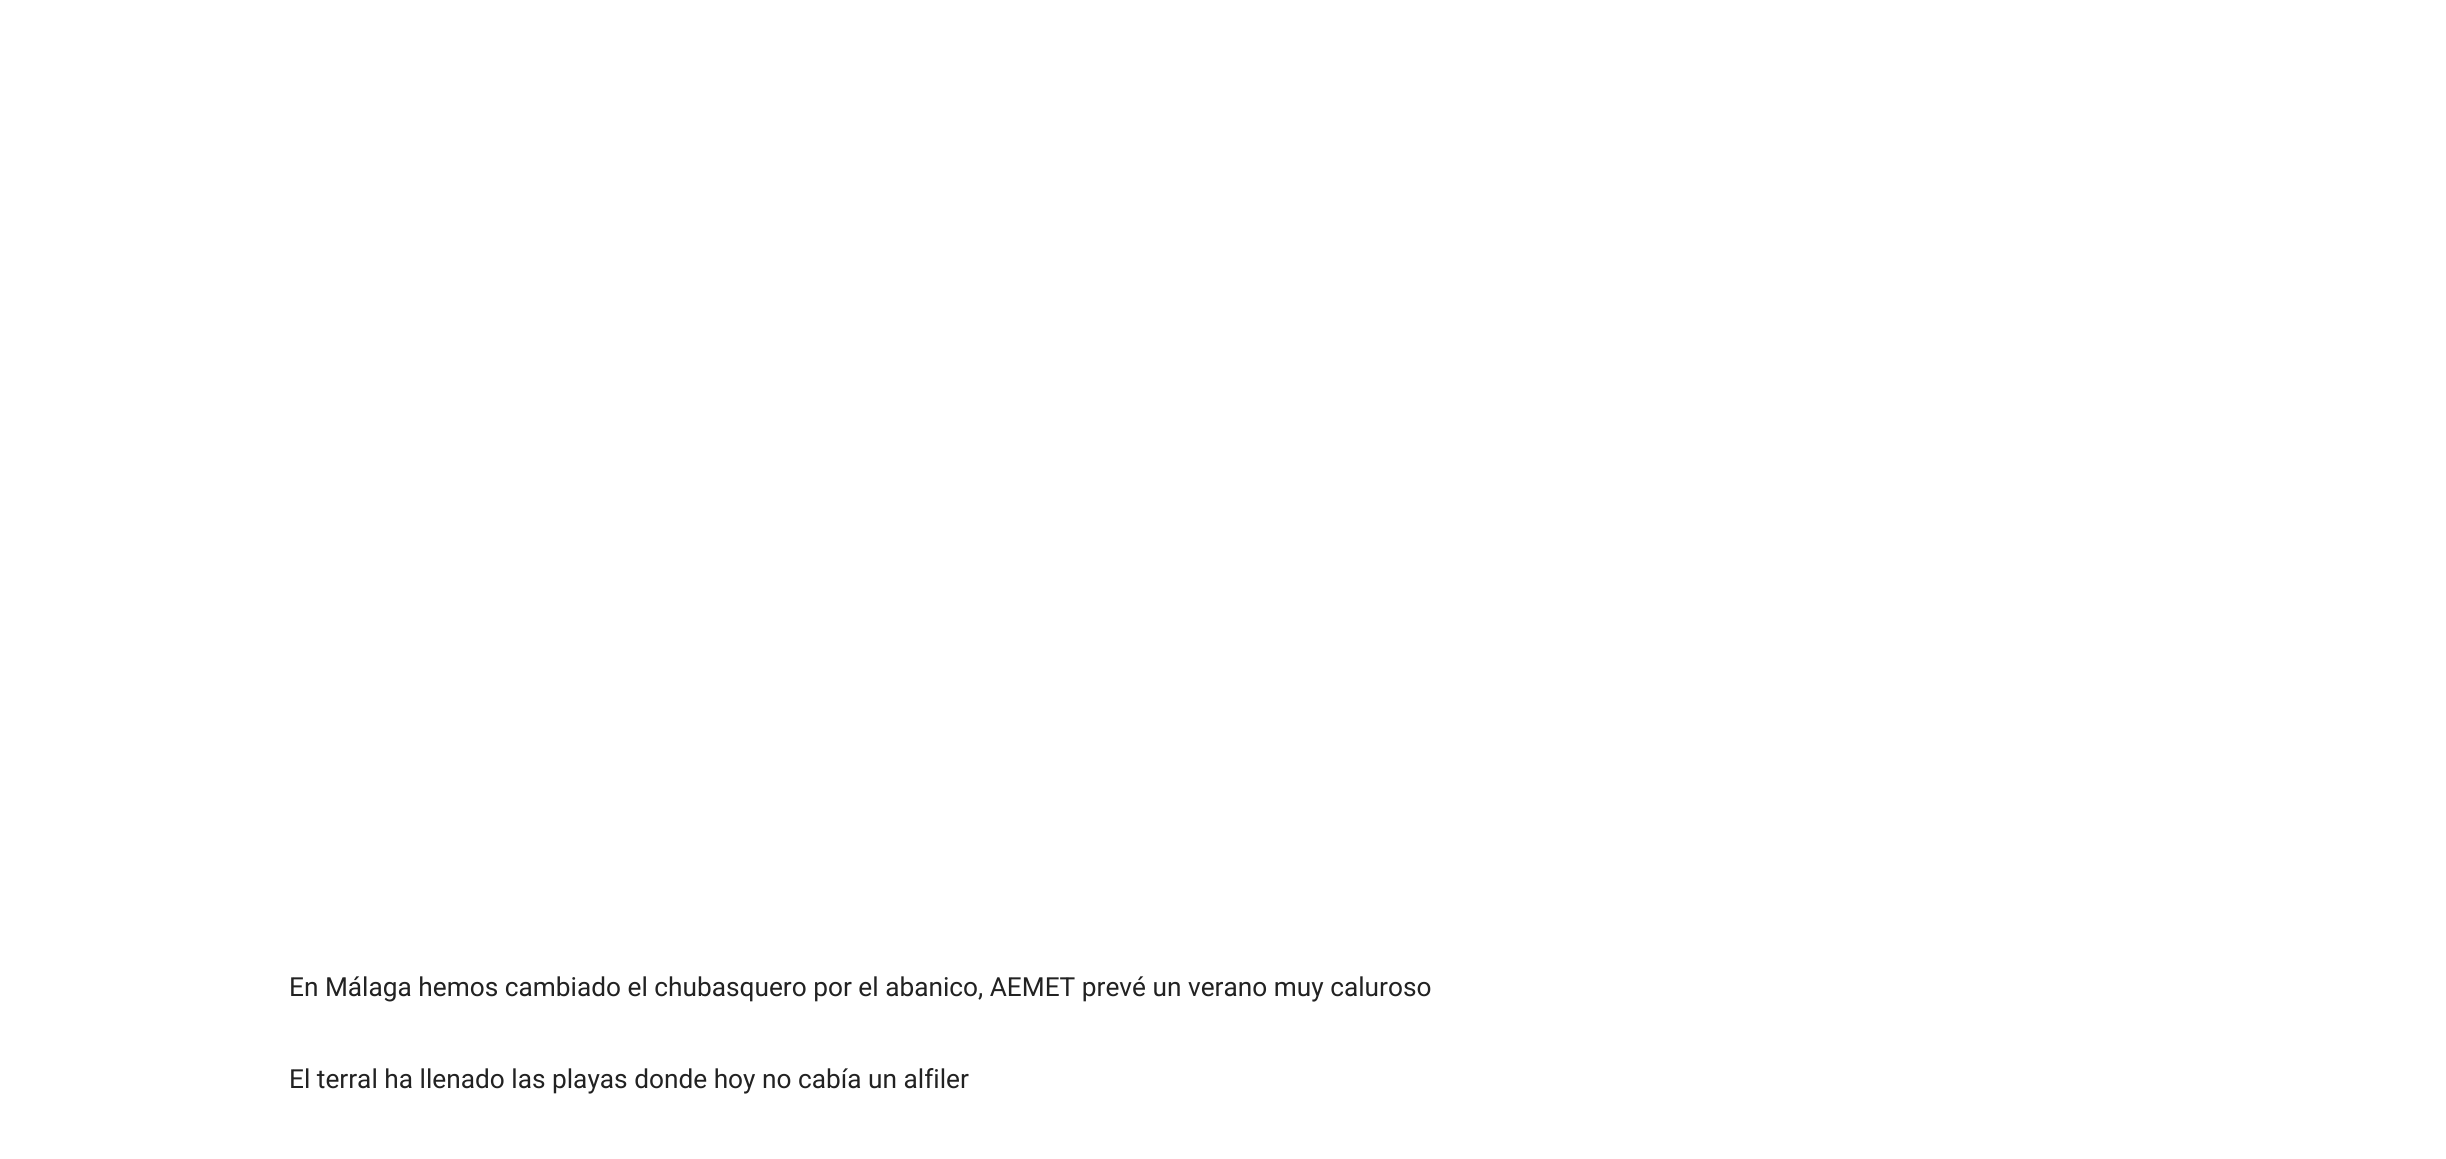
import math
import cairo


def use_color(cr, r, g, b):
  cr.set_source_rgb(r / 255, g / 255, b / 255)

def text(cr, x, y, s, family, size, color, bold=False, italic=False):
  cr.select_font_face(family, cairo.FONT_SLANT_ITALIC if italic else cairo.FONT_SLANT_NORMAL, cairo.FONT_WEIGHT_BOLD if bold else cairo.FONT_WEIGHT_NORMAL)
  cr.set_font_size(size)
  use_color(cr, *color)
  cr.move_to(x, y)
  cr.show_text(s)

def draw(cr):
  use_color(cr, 255, 255, 255)
  cr.paint()
  text(cr, 289, 996, "En Málaga hemos cambiado el chubasquero por el abanico, AEMET prevé un verano muy caluroso", "Roboto", 26.25, (34, 34, 34))
  text(cr, 289, 1088, "El terral ha llenado las playas donde hoy no cabía un alfiler", "Roboto", 26.25, (34, 34, 34))


surface = cairo.ImageSurface(cairo.FORMAT_RGB24, 2446, 1159)
cr = cairo.Context(surface)
options = cairo.FontOptions()
options.set_hint_metrics(cairo.HINT_METRICS_OFF)
options.set_hint_style(cairo.HINT_STYLE_NONE)
cr.set_font_options(options)
cr.set_miter_limit(4)
draw(cr)
surface.write_to_png("out.png")
